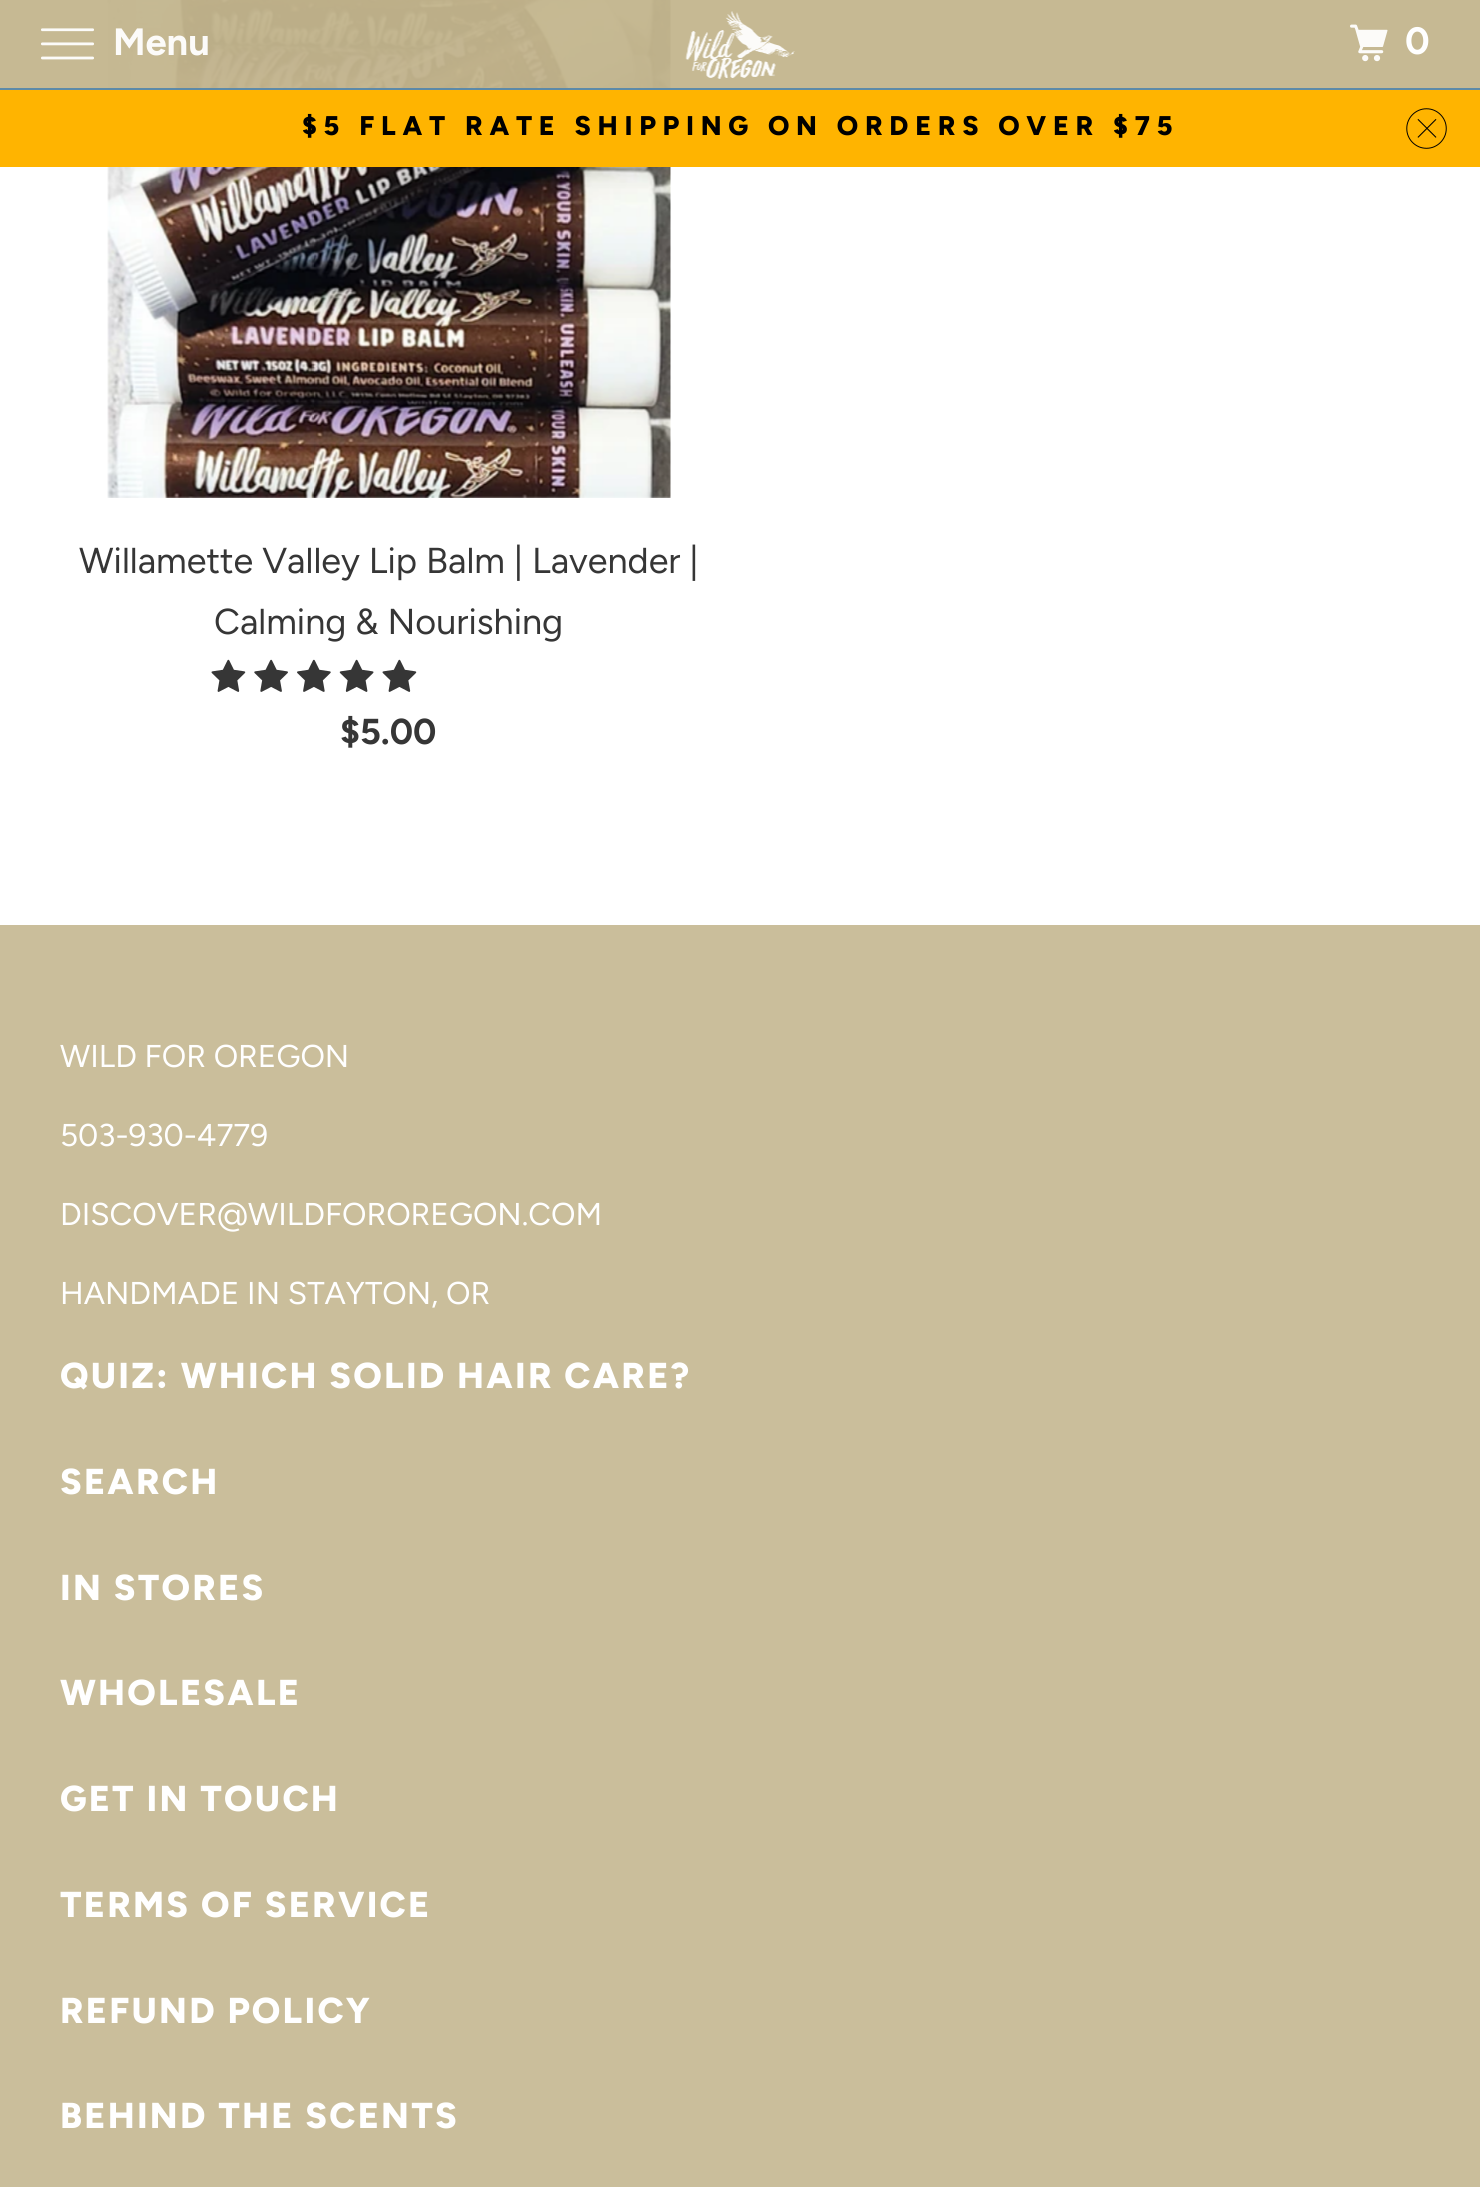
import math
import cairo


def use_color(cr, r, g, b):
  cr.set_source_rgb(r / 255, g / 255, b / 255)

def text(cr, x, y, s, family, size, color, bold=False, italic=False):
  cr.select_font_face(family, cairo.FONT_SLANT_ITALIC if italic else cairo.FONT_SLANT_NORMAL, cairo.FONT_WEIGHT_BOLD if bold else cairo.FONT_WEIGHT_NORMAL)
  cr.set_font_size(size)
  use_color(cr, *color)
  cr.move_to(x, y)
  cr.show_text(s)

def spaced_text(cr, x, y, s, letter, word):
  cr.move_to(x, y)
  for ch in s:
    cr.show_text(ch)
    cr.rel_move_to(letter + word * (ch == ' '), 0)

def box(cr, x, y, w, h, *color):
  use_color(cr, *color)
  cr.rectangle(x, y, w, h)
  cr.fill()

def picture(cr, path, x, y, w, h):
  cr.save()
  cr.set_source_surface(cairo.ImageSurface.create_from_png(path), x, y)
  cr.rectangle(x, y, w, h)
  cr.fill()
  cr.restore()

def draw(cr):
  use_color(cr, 255, 255, 255)
  cr.paint()
  picture(cr, "img_05.png", 107, 0, 564, 498)
  cr.set_source_rgba(0.765, 0.714, 0.557, 0.95)
  cr.rectangle(0, 0, 1480, 90)
  cr.fill()
  cr.set_source_rgba(0.345, 0.533, 0.667, 0.95)
  cr.rectangle(0, 88, 1480, 2)
  cr.fill()
  picture(cr, "img_01.png", 41, 28, 53, 32)
  picture(cr, "img_02.png", 685, 11, 110, 68)
  picture(cr, "img_03.png", 1350, 24, 38, 38)
  box(cr, 0, 90, 1480, 77, 255, 180, 0)
  picture(cr, "img_04.png", 1406, 108, 41, 41)
  picture(cr, "img_06.png", 211, 659, 35, 33)
  picture(cr, "img_07.png", 254, 659, 34, 33)
  picture(cr, "img_08.png", 297, 659, 34, 33)
  picture(cr, "img_09.png", 339, 659, 35, 33)
  picture(cr, "img_06.png", 382, 659, 35, 33)
  box(cr, 0, 925, 1480, 1262, 202, 190, 155)
  text(cr, 113, 55, "Menu", "Figtree", 38, (252, 251, 249), bold=True)
  text(cr, 1405, 54, "0", "Figtree", 38, (255, 255, 255), bold=True)
  cr.select_font_face("Figtree ExtraBold")
  cr.set_font_size(27)
  use_color(cr, 0, 0, 0)
  spaced_text(cr, 302, 135, "$5 FLAT RATE SHIPPING ON ORDERS OVER $75", 6.75, 0)
  text(cr, 79, 573, "Willamette Valley Lip Balm | Lavender |", "Figtree", 36, (54, 54, 54))
  text(cr, 214, 634, "Calming & Nourishing", "Figtree", 36, (54, 54, 54))
  text(cr, 340, 744, "$5.00", "Figtree", 36, (54, 54, 54), bold=True)
  text(cr, 60, 1067, "WILD FOR OREGON", "Figtree", 31.5, (255, 255, 255))
  text(cr, 60, 1146, "503-930-4779", "Figtree", 31.5, (255, 255, 255))
  text(cr, 60, 1225, "DISCOVER@WILDFOROREGON.COM", "Figtree", 31.5, (255, 255, 255))
  text(cr, 60, 1304, "HANDMADE IN STAYTON, OR", "Figtree", 31.5, (255, 255, 255))
  cr.select_font_face("Figtree ExtraBold")
  cr.set_font_size(36)
  spaced_text(cr, 60, 1388, "QUIZ: WHICH SOLID HAIR CARE?", 2.25, 0)
  spaced_text(cr, 60, 1494, "SEARCH", 2.25, 0)
  spaced_text(cr, 60, 1600, "IN STORES", 2.25, 0)
  spaced_text(cr, 60, 1705, "WHOLESALE", 2.25, 0)
  spaced_text(cr, 60, 1811, "GET IN TOUCH", 2.25, 0)
  spaced_text(cr, 60, 1917, "TERMS OF SERVICE", 2.25, 0)
  spaced_text(cr, 60, 2023, "REFUND POLICY", 2.25, 0)
  spaced_text(cr, 60, 2128, "BEHIND THE SCENTS", 2.25, 0)


surface = cairo.ImageSurface(cairo.FORMAT_RGB24, 1480, 2187)
cr = cairo.Context(surface)
options = cairo.FontOptions()
options.set_hint_metrics(cairo.HINT_METRICS_OFF)
options.set_hint_style(cairo.HINT_STYLE_NONE)
cr.set_font_options(options)
cr.set_miter_limit(4)
draw(cr)
surface.write_to_png("out.png")
